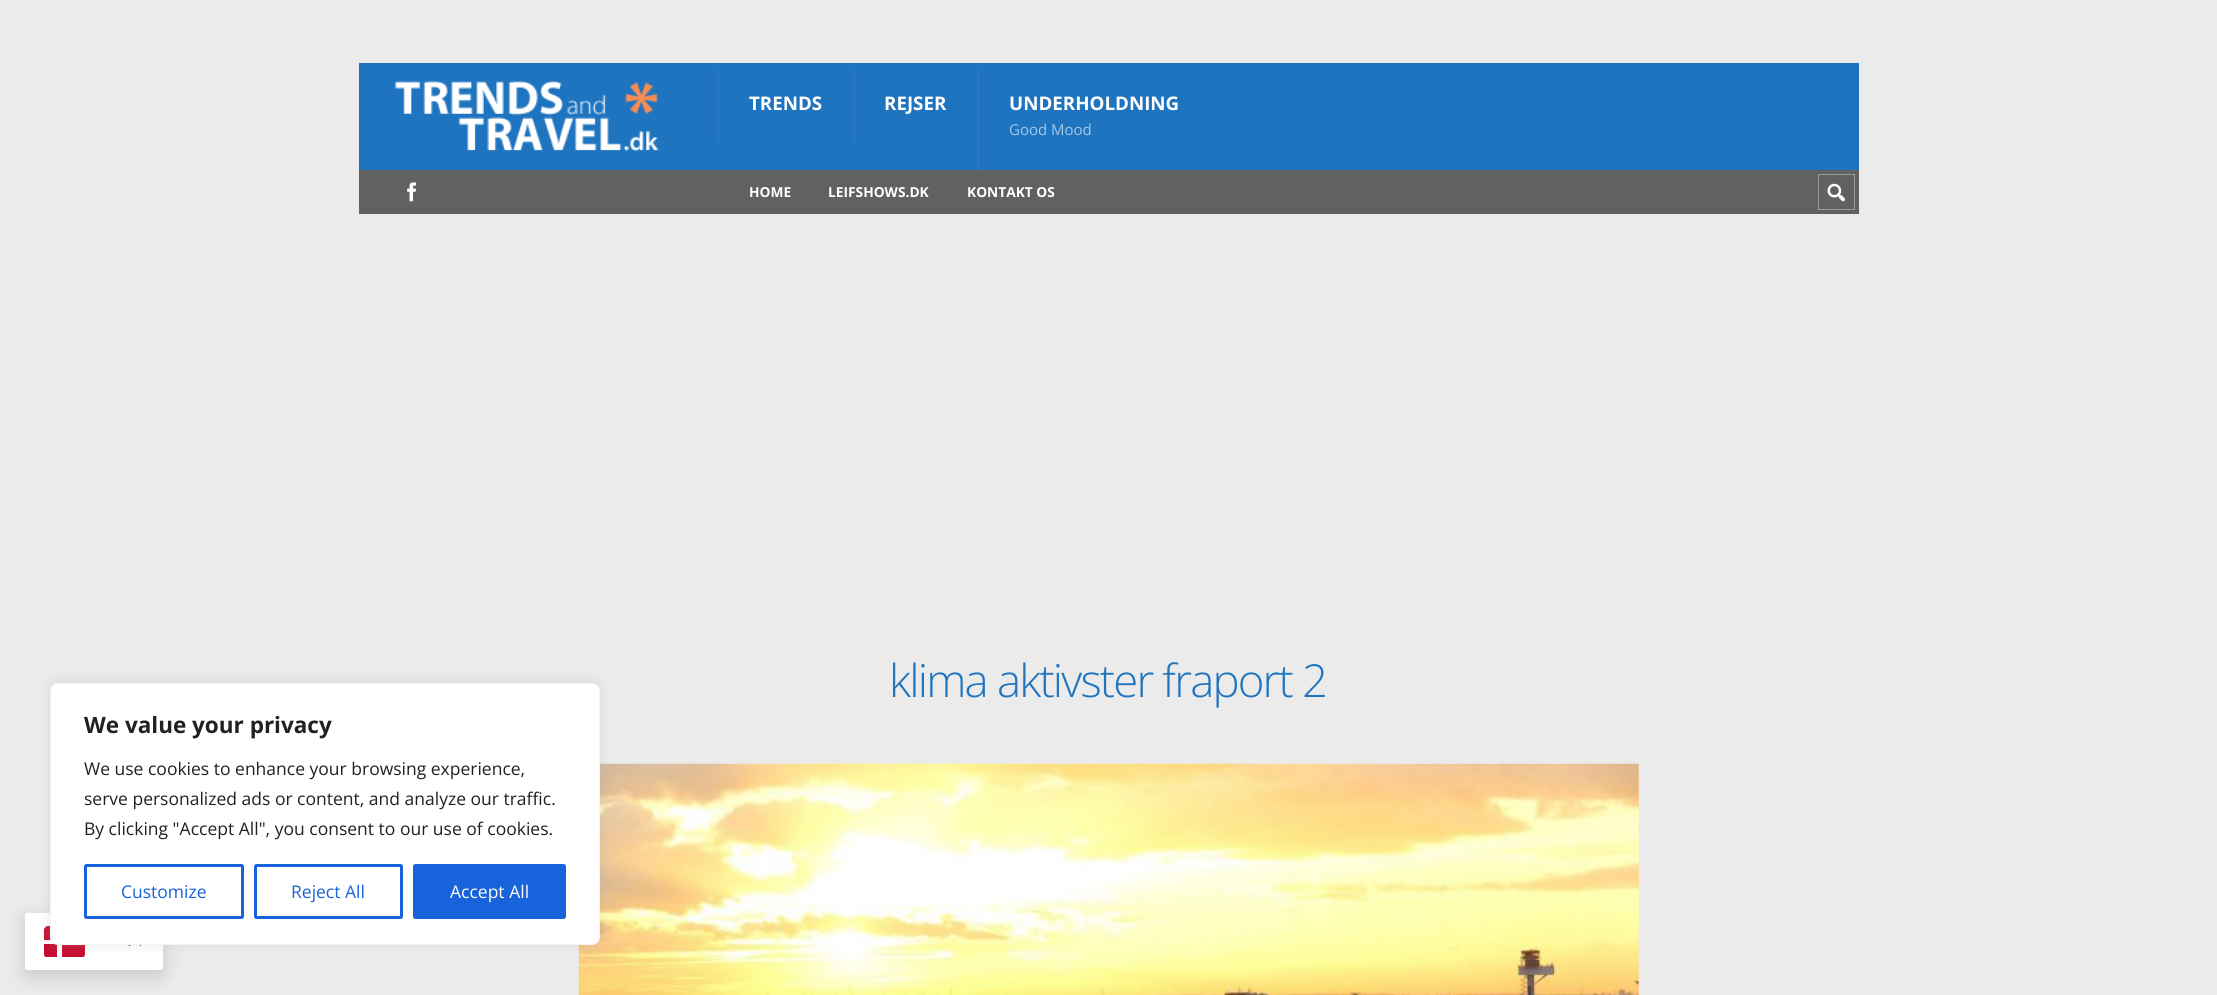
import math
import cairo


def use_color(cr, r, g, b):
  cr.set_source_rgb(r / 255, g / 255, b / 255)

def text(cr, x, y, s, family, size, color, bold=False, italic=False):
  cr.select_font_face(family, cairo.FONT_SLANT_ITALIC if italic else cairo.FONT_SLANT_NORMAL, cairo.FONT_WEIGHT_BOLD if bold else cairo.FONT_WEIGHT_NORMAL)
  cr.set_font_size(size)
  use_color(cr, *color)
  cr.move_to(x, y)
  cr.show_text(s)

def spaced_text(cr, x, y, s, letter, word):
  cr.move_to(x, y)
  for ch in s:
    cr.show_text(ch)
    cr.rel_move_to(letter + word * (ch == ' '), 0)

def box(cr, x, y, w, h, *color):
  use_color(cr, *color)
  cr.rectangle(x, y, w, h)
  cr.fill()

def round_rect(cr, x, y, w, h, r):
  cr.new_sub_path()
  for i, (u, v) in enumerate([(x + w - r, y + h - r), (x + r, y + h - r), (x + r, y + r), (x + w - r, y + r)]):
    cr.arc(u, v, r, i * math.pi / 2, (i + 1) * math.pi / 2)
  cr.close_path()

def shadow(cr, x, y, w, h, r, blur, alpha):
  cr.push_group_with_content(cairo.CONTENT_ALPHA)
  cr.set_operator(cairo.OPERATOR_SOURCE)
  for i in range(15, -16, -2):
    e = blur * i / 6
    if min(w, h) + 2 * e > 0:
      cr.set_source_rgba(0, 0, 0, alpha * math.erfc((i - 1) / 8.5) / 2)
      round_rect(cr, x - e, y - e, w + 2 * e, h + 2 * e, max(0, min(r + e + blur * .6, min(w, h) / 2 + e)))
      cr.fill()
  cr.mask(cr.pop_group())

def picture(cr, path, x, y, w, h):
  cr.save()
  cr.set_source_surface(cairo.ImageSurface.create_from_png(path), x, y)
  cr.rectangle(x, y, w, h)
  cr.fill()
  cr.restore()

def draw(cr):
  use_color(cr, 235, 235, 235)
  cr.paint()
  box(cr, 359, 63, 1500, 107, 31, 116, 191)
  picture(cr, "img_01.png", 394, 81, 265, 71)
  box(cr, 718, 69, 1, 74, 47, 126, 195)
  box(cr, 854, 69, 1, 74, 47, 126, 195)
  box(cr, 978, 69, 1, 101, 47, 126, 195)
  box(cr, 359, 170, 1500, 44, 97, 97, 97)
  picture(cr, "img_02.png", 407, 182, 9, 20)
  cr.save()
  cr.rectangle(1818, 174, 37, 36)
  cr.clip()
  use_color(cr, 152, 152, 152)
  cr.set_fill_rule(cairo.FILL_RULE_EVEN_ODD)
  cr.new_path()
  cr.move_to(1694, 50)
  cr.line_to(1979, 50)
  cr.line_to(1979, 334)
  cr.line_to(1694, 334)
  cr.close_path()
  cr.move_to(1816, 172)
  cr.line_to(1854, 172)
  cr.line_to(1854, 209)
  cr.line_to(1816, 209)
  cr.close_path()
  cr.fill()
  cr.set_source_rgba(1, 1, 1, 0.35)
  cr.new_path()
  cr.move_to(1694, 50)
  cr.line_to(1979, 50)
  cr.line_to(1979, 334)
  cr.line_to(1694, 334)
  cr.close_path()
  cr.move_to(1819, 175)
  cr.line_to(1856, 175)
  cr.line_to(1856, 211)
  cr.line_to(1819, 211)
  cr.close_path()
  cr.fill()
  cr.restore()
  picture(cr, "img_03.png", 1827, 183, 18, 19)
  picture(cr, "img_04.png", 578, 763, 1061, 232)
  use_color(cr, 0, 0, 0)
  shadow(cr, 25, 919, 138, 57, 2.5, 9.5, 0.15)
  use_color(cr, 255, 255, 255)
  round_rect(cr, 25, 913, 138, 57, 2.5)
  cr.fill()
  cr.save()
  round_rect(cr, 44, 926, 41, 32, 4)
  cr.clip()
  use_color(cr, 198, 12, 48)
  cr.new_path()
  cr.move_to(48, 926)
  cr.line_to(81, 926)
  cr.curve_to(83, 926, 85, 928, 85, 930)
  cr.line_to(85, 957)
  cr.line_to(44, 957)
  cr.line_to(44, 930)
  cr.curve_to(44, 928, 46, 926, 48, 926)
  cr.close_path()
  cr.fill()
  cr.restore()
  box(cr, 57, 944, 5, 13, 255, 255, 255)
  box(cr, 44, 940, 11, 4, 255, 255, 255)
  picture(cr, "img_05.png", 128, 945, 13, 2)
  use_color(cr, 172, 171, 171)
  shadow(cr, 50, 681, 550, 263, 8, 6, 0.3)
  use_color(cr, 255, 255, 255)
  round_rect(cr, 50.5, 683.5, 549, 261, 7.5)
  cr.fill_preserve()
  use_color(cr, 244, 244, 244)
  cr.set_line_width(1)
  cr.stroke()
  round_rect(cr, 85.5, 865.5, 157, 52, 1)
  use_color(cr, 24, 99, 220)
  cr.set_line_width(3)
  cr.stroke()
  round_rect(cr, 255.5, 865.5, 146, 52, 1)
  cr.stroke()
  round_rect(cr, 414.5, 865.5, 150, 52, 1)
  cr.fill_preserve()
  cr.stroke()
  text(cr, 749, 110, "TRENDS", "Open Sans", 18.75, (255, 255, 255), bold=True)
  text(cr, 884, 110, "REJSER", "Open Sans", 18.75, (255, 255, 255), bold=True)
  text(cr, 1009, 110, "UNDERHOLDNING", "Open Sans", 18.75, (255, 255, 255), bold=True)
  text(cr, 1009, 135, "Good Mood", "Open Sans", 15, (165, 199, 229))
  text(cr, 749, 197, "HOME", "Open Sans", 13.75, (255, 255, 255), bold=True)
  text(cr, 828, 197, "LEIFSHOWS.DK", "Open Sans", 13.75, (255, 255, 255), bold=True)
  text(cr, 967, 197, "KONTAKT OS", "Open Sans", 13.75, (255, 255, 255), bold=True)
  cr.select_font_face("Open Sans Light")
  cr.set_font_size(45.5)
  use_color(cr, 31, 116, 191)
  spaced_text(cr, 889, 697, "klima aktivster fraport 2", -1.8, 0)
  text(cr, 84, 733, "We value your privacy", "Open Sans", 22.5, (33, 33, 33), bold=True)
  text(cr, 84, 775, "We use cookies to enhance your browsing experience,", "Open Sans", 17.5, (33, 33, 33))
  text(cr, 84, 805, "serve personalized ads or content, and analyze our traffic.", "Open Sans", 17.5, (33, 33, 33))
  text(cr, 84, 835, "By clicking \"Accept All\", you consent to our use of cookies.", "Open Sans", 17.5, (33, 33, 33))
  text(cr, 121, 898, "Customize", "Open Sans", 17.5, (24, 99, 220))
  text(cr, 291, 898, "Reject All", "Open Sans", 17.5, (24, 99, 220))
  text(cr, 450, 898, "Accept All", "Open Sans", 17.5, (255, 255, 255))


surface = cairo.ImageSurface(cairo.FORMAT_RGB24, 2217, 995)
cr = cairo.Context(surface)
options = cairo.FontOptions()
options.set_hint_metrics(cairo.HINT_METRICS_OFF)
options.set_hint_style(cairo.HINT_STYLE_NONE)
cr.set_font_options(options)
cr.set_miter_limit(4)
draw(cr)
surface.write_to_png("out.png")
